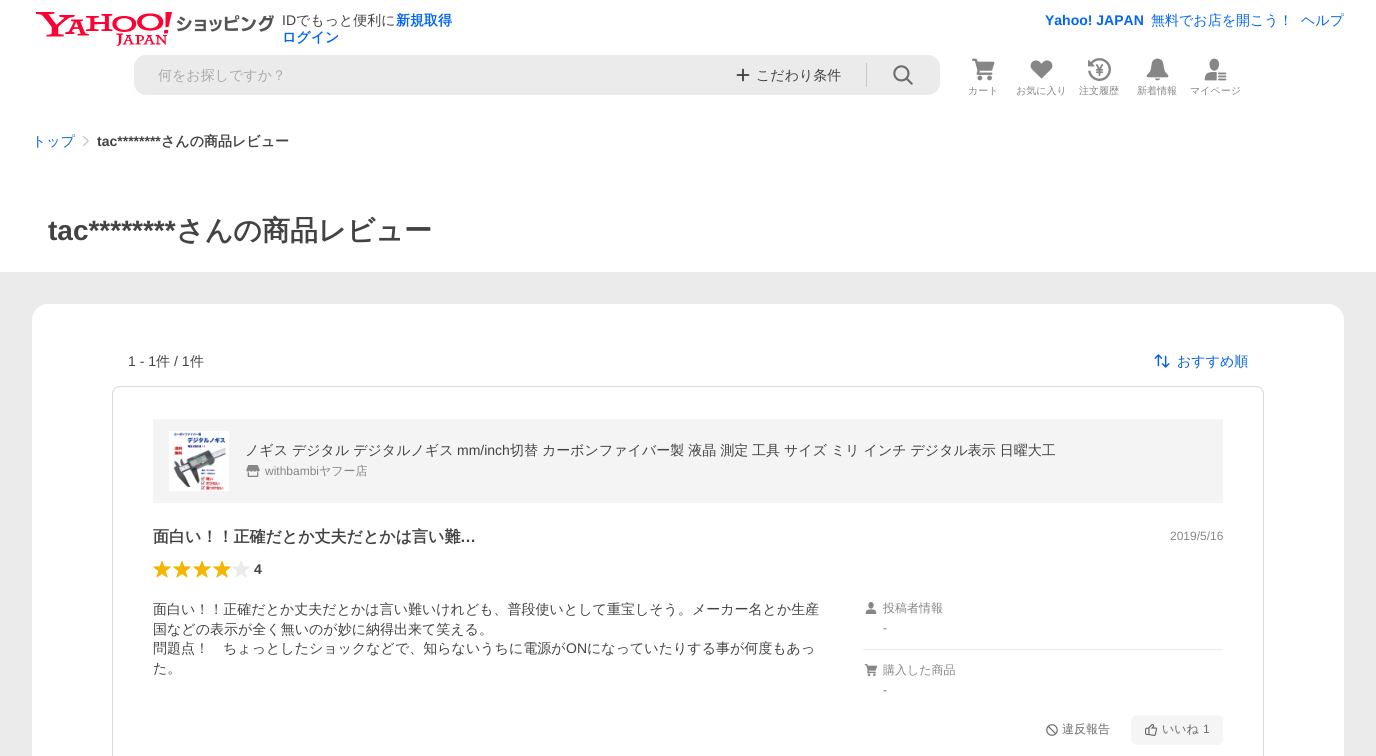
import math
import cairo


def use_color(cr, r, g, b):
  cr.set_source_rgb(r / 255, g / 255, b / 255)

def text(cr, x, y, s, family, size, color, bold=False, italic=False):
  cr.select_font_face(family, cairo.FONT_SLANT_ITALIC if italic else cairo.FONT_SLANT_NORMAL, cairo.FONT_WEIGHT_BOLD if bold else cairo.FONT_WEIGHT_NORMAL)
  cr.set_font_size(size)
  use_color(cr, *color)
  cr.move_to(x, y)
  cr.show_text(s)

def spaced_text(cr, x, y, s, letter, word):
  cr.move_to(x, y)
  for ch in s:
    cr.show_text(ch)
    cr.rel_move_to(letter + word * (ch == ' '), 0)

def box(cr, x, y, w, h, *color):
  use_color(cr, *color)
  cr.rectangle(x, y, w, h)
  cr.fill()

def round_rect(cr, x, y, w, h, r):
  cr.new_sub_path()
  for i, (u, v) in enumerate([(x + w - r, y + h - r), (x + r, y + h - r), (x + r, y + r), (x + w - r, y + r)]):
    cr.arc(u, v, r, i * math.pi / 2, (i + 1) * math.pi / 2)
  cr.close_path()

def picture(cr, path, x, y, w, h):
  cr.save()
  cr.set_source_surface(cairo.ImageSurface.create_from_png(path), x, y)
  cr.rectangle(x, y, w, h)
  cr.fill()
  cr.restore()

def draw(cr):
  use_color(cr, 255, 255, 255)
  cr.paint()
  picture(cr, "img_01.png", 36, 12, 238, 34)
  use_color(cr, 235, 235, 235)
  round_rect(cr, 134, 55, 806, 40, 12)
  cr.fill()
  picture(cr, "img_02.png", 736, 68, 14, 14)
  box(cr, 866, 63, 1, 24, 200, 200, 200)
  picture(cr, "img_03.png", 893, 65, 20, 20)
  picture(cr, "img_04.png", 972, 58, 23, 23)
  picture(cr, "img_05.png", 1030, 60, 23, 19)
  picture(cr, "img_06.png", 1088, 58, 23, 23)
  picture(cr, "img_07.png", 1146, 58, 23, 23)
  picture(cr, "img_08.png", 1204, 58, 23, 23)
  picture(cr, "img_09.png", 83, 135, 6, 12)
  box(cr, 0, 272, 1376, 484, 235, 235, 235)
  use_color(cr, 255, 255, 255)
  round_rect(cr, 32, 304, 1312, 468, 16)
  cr.fill()
  picture(cr, "img_10.png", 1154, 354, 16, 14)
  round_rect(cr, 112.5, 386.5, 1151, 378, 7.5)
  use_color(cr, 217, 217, 217)
  cr.set_line_width(1)
  cr.stroke()
  box(cr, 153, 419, 1070, 84, 244, 244, 244)
  picture(cr, "img_11.png", 169, 431, 60, 60)
  picture(cr, "img_12.png", 246, 465, 14, 12)
  picture(cr, "img_13.png", 153, 560, 18, 18)
  picture(cr, "img_13.png", 173, 560, 18, 18)
  picture(cr, "img_13.png", 193, 560, 18, 18)
  picture(cr, "img_13.png", 213, 560, 18, 18)
  picture(cr, "img_14.png", 232, 561, 18, 17)
  picture(cr, "img_15.png", 865, 602, 12, 12)
  box(cr, 863, 649, 360, 1, 235, 235, 235)
  picture(cr, "img_16.png", 864, 664, 13, 12)
  picture(cr, "img_17.png", 1046, 724, 12, 12)
  use_color(cr, 245, 245, 245)
  round_rect(cr, 1131, 715, 92, 30, 6)
  cr.fill()
  picture(cr, "img_18.png", 1145, 724, 13, 12)
  text(cr, 282, 25, "ID", "Liberation Sans", 14, (67, 67, 67))
  text(cr, 296, 25, "でもっと便利に", "WenQuanYi Zen Hei Medium", 14, (67, 67, 67))
  text(cr, 396, 25, "新規取得", "WenQuanYi Zen Hei", 14, (2, 101, 246), bold=True)
  text(cr, 282, 42, "ログイン", "WenQuanYi Zen Hei", 14, (2, 101, 246), bold=True)
  text(cr, 1045, 25, "Yahoo! JAPAN", "Liberation Sans", 14, (2, 101, 246), bold=True)
  text(cr, 1151, 25, "無料でお店を開こう！", "WenQuanYi Zen Hei Medium", 14, (2, 101, 246))
  text(cr, 1301, 25, "ヘルプ", "WenQuanYi Zen Hei Medium", 14, (2, 101, 246))
  text(cr, 158, 80, "何をお探しですか？", "WenQuanYi Zen Hei Medium", 14, (169, 169, 169))
  text(cr, 756, 80, "こだわり条件", "WenQuanYi Zen Hei Medium", 14, (67, 67, 67))
  text(cr, 968, 94, "カート", "WenQuanYi Zen Hei Medium", 10, (134, 134, 134))
  text(cr, 1016, 94, "お気に入り", "WenQuanYi Zen Hei Medium", 10, (134, 134, 134))
  text(cr, 1079, 94, "注文履歴", "WenQuanYi Zen Hei Medium", 10, (134, 134, 134))
  text(cr, 1137, 94, "新着情報", "WenQuanYi Zen Hei Medium", 10, (134, 134, 134))
  text(cr, 1190, 94, "マイページ", "WenQuanYi Zen Hei Medium", 10, (134, 134, 134))
  text(cr, 32, 146, "トップ", "WenQuanYi Zen Hei Medium", 14, (2, 96, 234))
  text(cr, 97, 146, "tac********", "Liberation Sans", 14, (67, 67, 67), bold=True)
  text(cr, 161, 146, "さんの商品レビュー", "WenQuanYi Zen Hei", 14, (67, 67, 67), bold=True)
  text(cr, 48, 240, "tac********", "Liberation Sans", 28, (67, 67, 67), bold=True)
  text(cr, 176, 240, "さんの商品レビュー", "WenQuanYi Zen Hei", 28, (67, 67, 67), bold=True)
  text(cr, 128, 366, "1 - 1", "Liberation Sans", 14, (67, 67, 67))
  text(cr, 156, 366, "件", "WenQuanYi Zen Hei Medium", 14, (67, 67, 67))
  text(cr, 174, 366, "/ 1", "Liberation Sans", 14, (67, 67, 67))
  text(cr, 190, 366, "件", "WenQuanYi Zen Hei Medium", 14, (67, 67, 67))
  text(cr, 1177, 366, "おすすめ順", "WenQuanYi Zen Hei Medium", 14, (2, 96, 234))
  use_color(cr, 67, 67, 67)
  spaced_text(cr, 245, 455, "ノギス デジタル デジタルノギス", 0, -0.25)
  text(cr, 457, 455, "mm/inch", "Liberation Sans", 14, (67, 67, 67))
  cr.select_font_face("WenQuanYi Zen Hei Medium")
  spaced_text(cr, 510, 455, "切替 カーボンファイバー製 液晶 測定 工具 サイズ ミリ インチ デジタル表示 日曜大工", 0, -0.25)
  text(cr, 265, 475, "withbambi", "Liberation Sans", 12, (134, 134, 134))
  text(cr, 319, 475, "ヤフー店", "WenQuanYi Zen Hei Medium", 12, (134, 134, 134))
  text(cr, 153, 542, "面白い！！正確だとか丈夫だとかは言い難", "WenQuanYi Zen Hei", 16, (67, 67, 67), bold=True)
  text(cr, 460, 542, "…", "Liberation Sans", 16, (67, 67, 67), bold=True)
  text(cr, 1170, 540, "2019/5/16", "Liberation Sans", 12, (134, 134, 134))
  text(cr, 254, 574, "4", "Liberation Sans", 14, (67, 67, 67), bold=True)
  text(cr, 153, 614, "面白い！！正確だとか丈夫だとかは言い難いけれども、普段使いとして重宝しそう。メーカー名とか生産", "WenQuanYi Zen Hei Medium", 14, (67, 67, 67))
  text(cr, 153, 634, "国などの表示が全く無いのが妙に納得出来て笑える。", "WenQuanYi Zen Hei Medium", 14, (67, 67, 67))
  text(cr, 153, 653, "問題点！　ちょっとしたショックなどで、知らないうちに電源が", "WenQuanYi Zen Hei Medium", 14, (67, 67, 67))
  text(cr, 566, 653, "ON", "Liberation Sans", 14, (67, 67, 67))
  text(cr, 587, 653, "になっていたりする事が何度もあっ", "WenQuanYi Zen Hei Medium", 14, (67, 67, 67))
  text(cr, 153, 673, "た。", "WenQuanYi Zen Hei Medium", 14, (67, 67, 67))
  text(cr, 883, 612, "投稿者情報", "WenQuanYi Zen Hei Medium", 12, (134, 134, 134))
  text(cr, 883, 632, "-", "Liberation Sans", 12, (106, 106, 106))
  text(cr, 883, 674, "購入した商品", "WenQuanYi Zen Hei Medium", 12, (134, 134, 134))
  text(cr, 883, 694, "-", "Liberation Sans", 12, (106, 106, 106))
  text(cr, 1062, 733, "違反報告", "WenQuanYi Zen Hei Medium", 12, (106, 106, 106))
  text(cr, 1162, 733, "いいね", "WenQuanYi Zen Hei Medium", 12, (106, 106, 106))
  text(cr, 1203, 733, "1", "Liberation Sans", 12, (106, 106, 106))


surface = cairo.ImageSurface(cairo.FORMAT_RGB24, 1376, 756)
cr = cairo.Context(surface)
options = cairo.FontOptions()
options.set_hint_metrics(cairo.HINT_METRICS_OFF)
options.set_hint_style(cairo.HINT_STYLE_NONE)
cr.set_font_options(options)
cr.set_miter_limit(4)
draw(cr)
surface.write_to_png("out.png")
